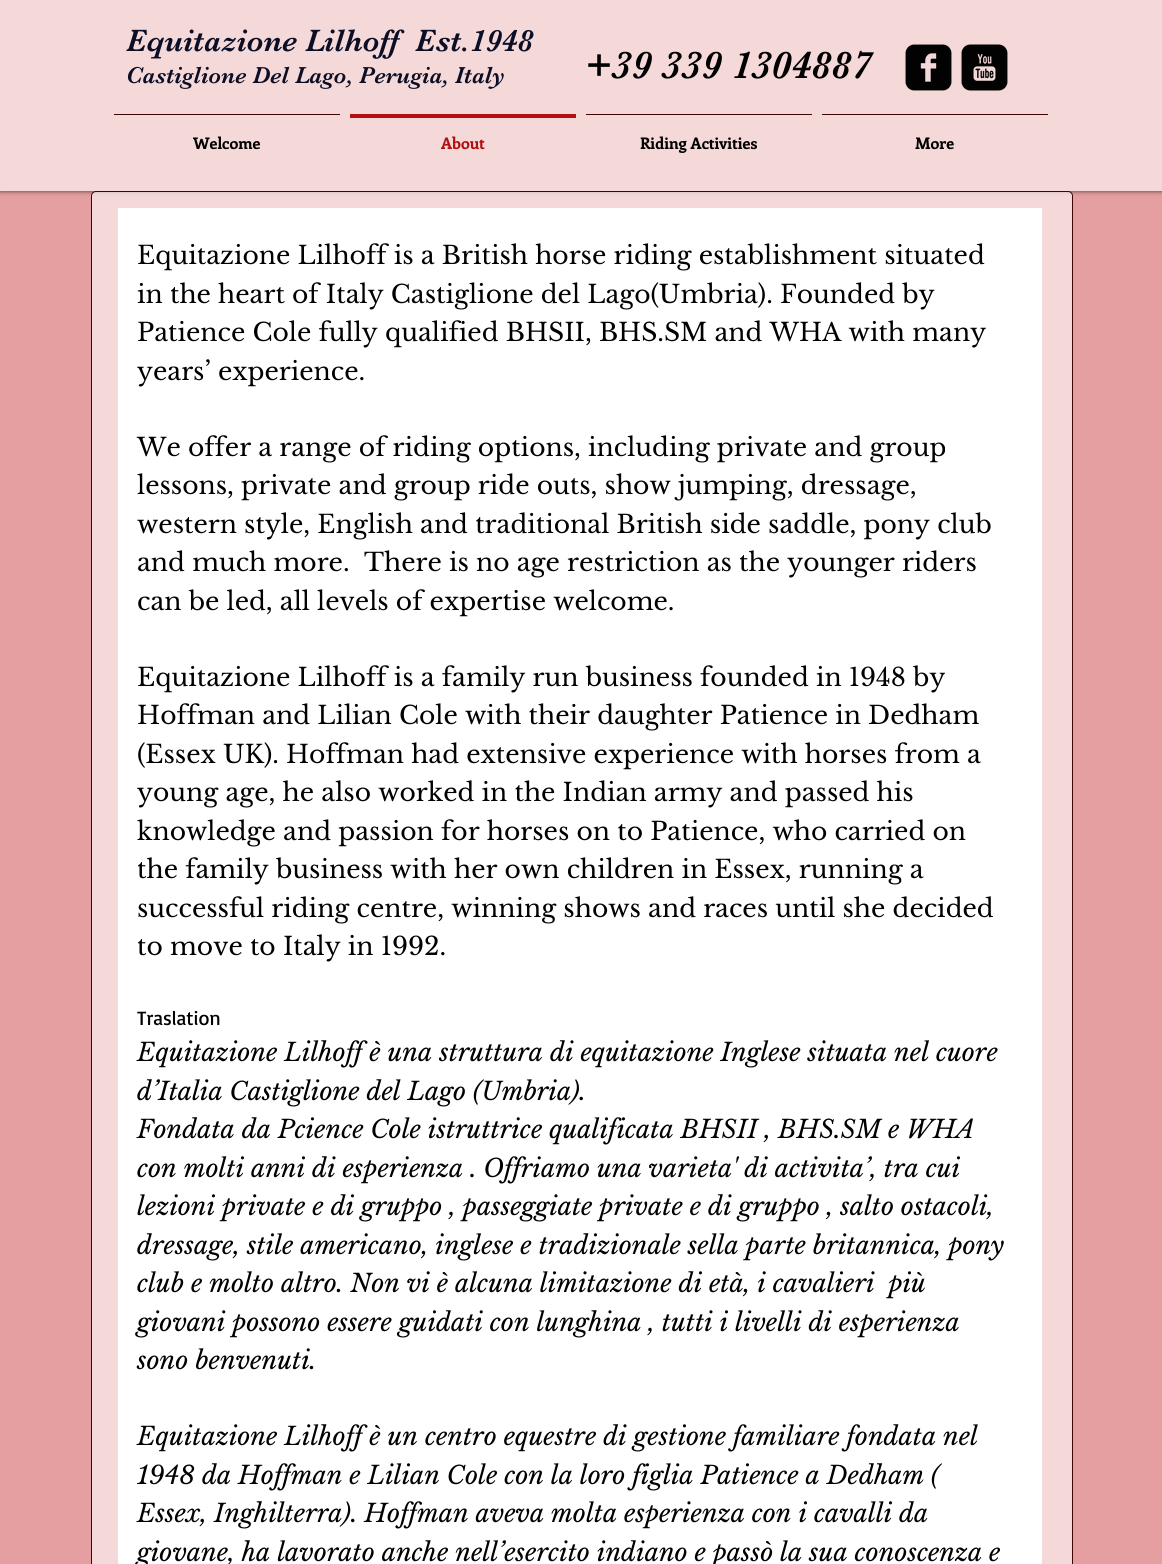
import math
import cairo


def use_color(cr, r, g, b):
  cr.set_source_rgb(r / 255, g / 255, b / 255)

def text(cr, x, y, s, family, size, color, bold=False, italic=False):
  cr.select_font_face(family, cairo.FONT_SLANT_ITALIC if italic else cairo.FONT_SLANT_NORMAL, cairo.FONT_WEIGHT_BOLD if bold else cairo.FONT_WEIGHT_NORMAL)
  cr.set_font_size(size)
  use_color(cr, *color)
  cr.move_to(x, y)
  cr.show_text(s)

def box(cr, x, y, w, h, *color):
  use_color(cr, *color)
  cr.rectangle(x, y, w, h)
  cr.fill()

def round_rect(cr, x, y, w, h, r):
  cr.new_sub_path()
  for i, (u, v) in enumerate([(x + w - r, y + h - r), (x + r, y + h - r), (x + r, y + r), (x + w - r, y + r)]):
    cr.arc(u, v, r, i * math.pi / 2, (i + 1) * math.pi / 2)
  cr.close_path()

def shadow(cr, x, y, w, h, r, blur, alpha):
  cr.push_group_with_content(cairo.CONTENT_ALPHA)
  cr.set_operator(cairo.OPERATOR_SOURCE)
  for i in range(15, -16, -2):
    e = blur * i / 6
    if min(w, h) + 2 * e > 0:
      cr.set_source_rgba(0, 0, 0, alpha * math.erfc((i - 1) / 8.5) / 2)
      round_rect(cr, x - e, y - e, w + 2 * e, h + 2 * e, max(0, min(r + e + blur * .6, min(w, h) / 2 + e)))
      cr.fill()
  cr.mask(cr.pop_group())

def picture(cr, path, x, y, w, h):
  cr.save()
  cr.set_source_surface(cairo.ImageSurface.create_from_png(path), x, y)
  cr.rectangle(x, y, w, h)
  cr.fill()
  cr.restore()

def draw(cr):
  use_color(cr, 230, 159, 160)
  cr.paint()
  use_color(cr, 0, 0, 0)
  shadow(cr, 0, 0, 1162, 191, 0, 2.5, 0.7)
  box(cr, 0, 0, 1162, 191, 245, 217, 217)
  picture(cr, "img_01.png", 905, 44, 47, 47)
  picture(cr, "img_02.png", 961, 44, 47, 47)
  box(cr, 114, 114, 226, 1, 60, 5, 6)
  box(cr, 350, 114, 226, 4, 179, 14, 17)
  box(cr, 586, 114, 226, 1, 60, 5, 6)
  box(cr, 822, 114, 226, 1, 60, 5, 6)
  cr.set_source_rgba(1, 1, 1, 0.6)
  round_rect(cr, 91.5, 191.5, 981, 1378, 4.5)
  cr.fill_preserve()
  use_color(cr, 60, 5, 6)
  cr.set_line_width(1)
  cr.stroke()
  box(cr, 118, 208, 924, 1356, 255, 255, 255)
  text(cr, 126, 51, "Equitazione Lilhoff  Est.1948", "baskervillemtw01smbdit", 32, (12, 14, 38))
  text(cr, 585, 78, "+39 339 1304887", "baskervillemtw01smbdit", 40, (0, 0, 0))
  text(cr, 126, 83, "Castiglione Del Lago, Perugia, Italy", "baskervillemtw01smbdit", 24, (12, 14, 38))
  text(cr, 193, 149, "Welcome", "Enriqueta", 16, (0, 0, 0), bold=True)
  text(cr, 441, 149, "About", "Enriqueta", 16, (179, 14, 17), bold=True)
  text(cr, 640, 149, "Riding Activities", "Enriqueta", 16, (0, 0, 0), bold=True)
  text(cr, 915, 149, "More", "Enriqueta", 16, (0, 0, 0), bold=True)
  text(cr, 137, 264, "Equitazione Lilhoff is a British horse riding establishment situated", "Libre Baskerville", 25, (0, 0, 0))
  text(cr, 137, 303, "in the heart of Italy Castiglione del Lago(Umbria). Founded by", "Libre Baskerville", 25, (0, 0, 0))
  text(cr, 137, 341, "Patience Cole fully qualified BHSII, BHS.SM and WHA with many", "Libre Baskerville", 25, (0, 0, 0))
  text(cr, 137, 380, "years’ experience.", "Libre Baskerville", 25, (0, 0, 0))
  text(cr, 137, 456, "We offer a range of riding options, including private and group", "Libre Baskerville", 25, (0, 0, 0))
  text(cr, 137, 494, "lessons, private and group ride outs, show jumping, dressage,", "Libre Baskerville", 25, (0, 0, 0))
  text(cr, 137, 533, "western style, English and traditional British side saddle, pony club", "Libre Baskerville", 25, (0, 0, 0))
  text(cr, 137, 571, "and much more.  There is no age restriction as the younger riders", "Libre Baskerville", 25, (0, 0, 0))
  text(cr, 137, 610, "can be led, all levels of expertise welcome.", "Libre Baskerville", 25, (0, 0, 0))
  text(cr, 137, 686, "Equitazione Lilhoff is a family run business founded in 1948 by", "Libre Baskerville", 25, (0, 0, 0))
  text(cr, 137, 724, "Hoffman and Lilian Cole with their daughter Patience in Dedham", "Libre Baskerville", 25, (0, 0, 0))
  text(cr, 137, 763, "(Essex UK). Hoffman had extensive experience with horses from a", "Libre Baskerville", 25, (0, 0, 0))
  text(cr, 137, 801, "young age, he also worked in the Indian army and passed his", "Libre Baskerville", 25, (0, 0, 0))
  text(cr, 137, 840, "knowledge and passion for horses on to Patience, who carried on", "Libre Baskerville", 25, (0, 0, 0))
  text(cr, 137, 878, "the family business with her own children in Essex, running a", "Libre Baskerville", 25, (0, 0, 0))
  text(cr, 137, 917, "successful riding centre, winning shows and races until she decided", "Libre Baskerville", 25, (0, 0, 0))
  text(cr, 137, 955, "to move to Italy in 1992.", "Libre Baskerville", 25, (0, 0, 0))
  text(cr, 137, 1025, "Traslation", "Basic", 20, (0, 0, 0))
  text(cr, 137, 1061, "Equitazione Lilhoff è una struttura di equitazione Inglese situata nel cuore", "Libre Baskerville", 25, (0, 0, 0), italic=True)
  text(cr, 137, 1100, "d’Italia Castiglione del Lago (Umbria).", "Libre Baskerville", 25, (0, 0, 0), italic=True)
  text(cr, 137, 1138, "Fondata da Pcience Cole istruttrice qualificata BHSII , BHS.SM e WHA", "Libre Baskerville", 25, (0, 0, 0), italic=True)
  text(cr, 137, 1177, "con molti anni di esperienza . Offriamo una varieta' di activita’, tra cui", "Libre Baskerville", 25, (0, 0, 0), italic=True)
  text(cr, 137, 1215, "lezioni private e di gruppo , passeggiate private e di gruppo , salto ostacoli,", "Libre Baskerville", 25, (0, 0, 0), italic=True)
  text(cr, 137, 1254, "dressage, stile americano, inglese e tradizionale sella parte britannica, pony", "Libre Baskerville", 25, (0, 0, 0), italic=True)
  text(cr, 137, 1292, "club e molto altro. Non vi è alcuna limitazione di età, i cavalieri  più", "Libre Baskerville", 25, (0, 0, 0), italic=True)
  text(cr, 137, 1331, "giovani possono essere guidati con lunghina , tutti i livelli di esperienza", "Libre Baskerville", 25, (0, 0, 0), italic=True)
  text(cr, 137, 1369, "sono benvenuti.", "Libre Baskerville", 25, (0, 0, 0), italic=True)
  text(cr, 137, 1445, "Equitazione Lilhoff è un centro equestre di gestione familiare fondata nel", "Libre Baskerville", 25, (0, 0, 0), italic=True)
  text(cr, 137, 1484, "1948 da Hoffman e Lilian Cole con la loro figlia Patience a Dedham (", "Libre Baskerville", 25, (0, 0, 0), italic=True)
  text(cr, 137, 1522, "Essex, Inghilterra). Hoffman aveva molta esperienza con i cavalli da", "Libre Baskerville", 25, (0, 0, 0), italic=True)
  text(cr, 137, 1561, "giovane, ha lavorato anche nell’esercito indiano e passò la sua conoscenza e", "Libre Baskerville", 25, (0, 0, 0), italic=True)


surface = cairo.ImageSurface(cairo.FORMAT_RGB24, 1162, 1564)
cr = cairo.Context(surface)
options = cairo.FontOptions()
options.set_hint_metrics(cairo.HINT_METRICS_OFF)
options.set_hint_style(cairo.HINT_STYLE_NONE)
cr.set_font_options(options)
cr.set_miter_limit(4)
draw(cr)
surface.write_to_png("out.png")
